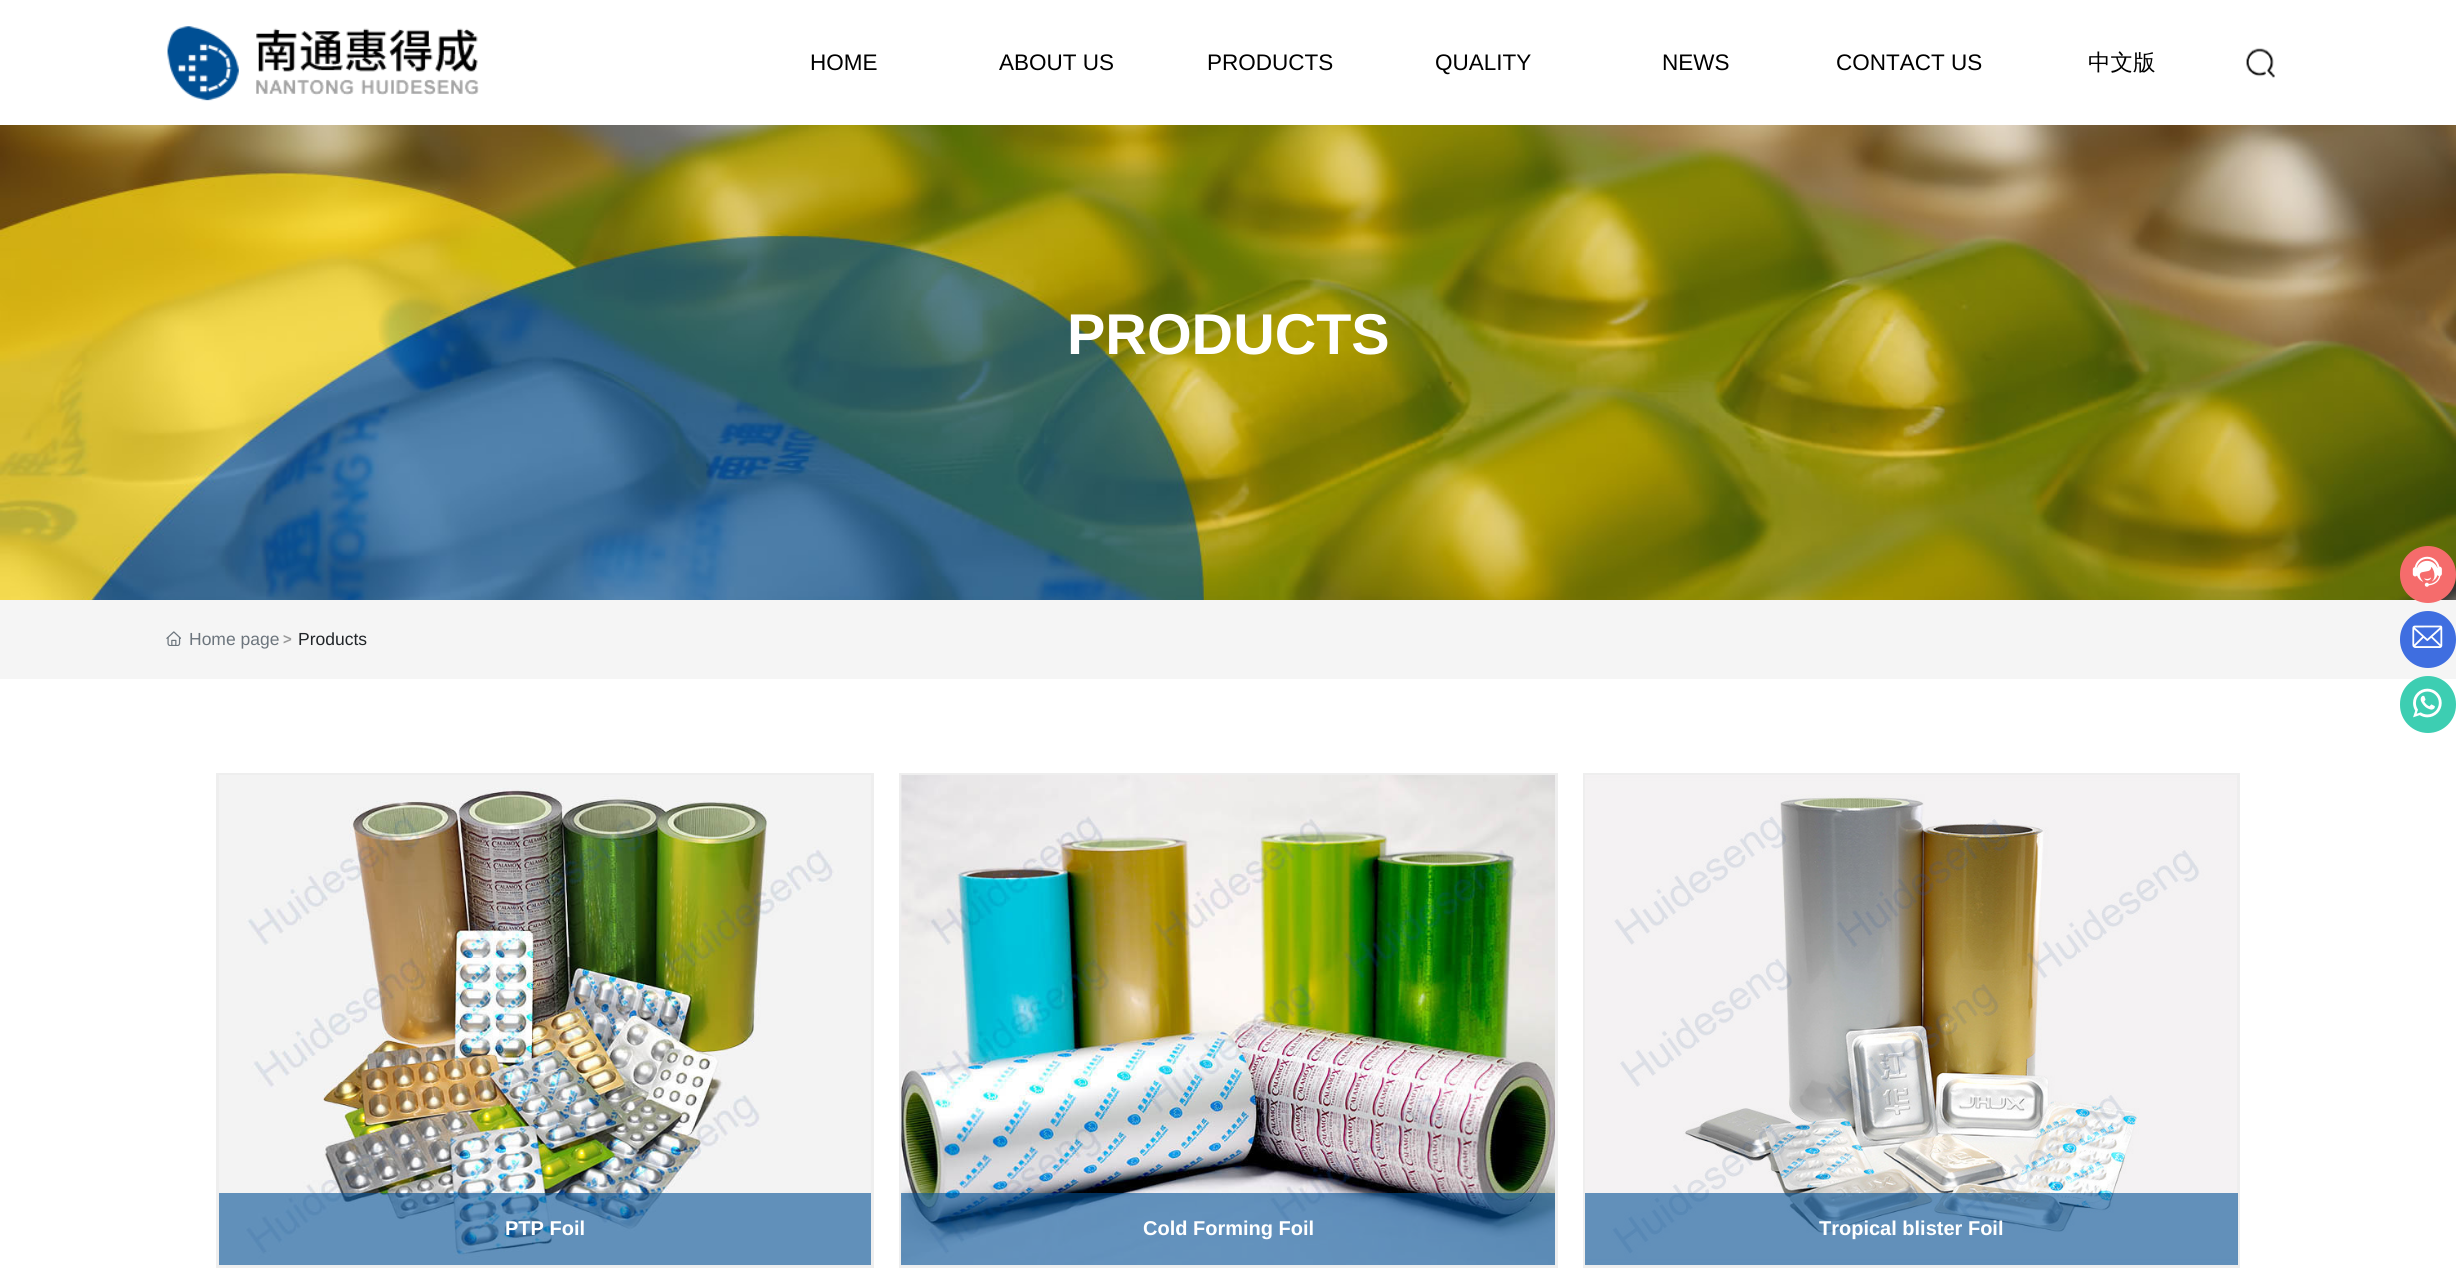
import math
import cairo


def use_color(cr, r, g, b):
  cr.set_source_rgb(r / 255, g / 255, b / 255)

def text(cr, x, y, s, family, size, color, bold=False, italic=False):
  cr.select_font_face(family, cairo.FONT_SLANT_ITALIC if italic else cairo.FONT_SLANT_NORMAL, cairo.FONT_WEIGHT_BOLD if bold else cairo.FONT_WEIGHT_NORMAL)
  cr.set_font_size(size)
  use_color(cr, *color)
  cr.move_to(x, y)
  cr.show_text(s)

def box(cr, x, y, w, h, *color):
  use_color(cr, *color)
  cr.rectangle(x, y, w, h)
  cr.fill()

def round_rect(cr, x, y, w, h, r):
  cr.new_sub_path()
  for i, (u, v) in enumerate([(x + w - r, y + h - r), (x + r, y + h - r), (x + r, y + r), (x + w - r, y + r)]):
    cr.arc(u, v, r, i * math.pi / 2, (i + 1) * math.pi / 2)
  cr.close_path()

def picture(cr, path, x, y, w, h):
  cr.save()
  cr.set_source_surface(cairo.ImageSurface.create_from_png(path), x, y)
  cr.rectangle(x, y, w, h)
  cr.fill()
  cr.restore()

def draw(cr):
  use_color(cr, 255, 255, 255)
  cr.paint()
  picture(cr, "img_01.png", 167, 26, 312, 75)
  picture(cr, "img_02.png", 2246, 48, 29, 30)
  picture(cr, "img_03.png", 0, 125, 2456, 475)
  box(cr, 0, 600, 2456, 79, 245, 245, 245)
  picture(cr, "img_04.png", 166, 631, 15, 15)
  cr.rectangle(217.5, 774.5, 655, 492)
  use_color(cr, 238, 238, 238)
  cr.set_line_width(3)
  cr.stroke()
  picture(cr, "img_05.png", 219, 775, 652, 490)
  cr.set_source_rgba(0, 0.31, 0.58, 0.6)
  cr.rectangle(219, 1193, 652, 72)
  cr.fill()
  cr.rectangle(900.5, 774.5, 656, 492)
  use_color(cr, 238, 238, 238)
  cr.stroke()
  picture(cr, "img_06.png", 901, 775, 654, 490)
  cr.set_source_rgba(0, 0.31, 0.58, 0.6)
  cr.rectangle(901, 1193, 654, 72)
  cr.fill()
  cr.rectangle(1584.5, 774.5, 654, 492)
  use_color(cr, 238, 238, 238)
  cr.stroke()
  picture(cr, "img_07.png", 1585, 775, 652, 490)
  cr.set_source_rgba(0, 0.31, 0.58, 0.6)
  cr.rectangle(1585, 1193, 653, 72)
  cr.fill()
  use_color(cr, 245, 108, 108)
  round_rect(cr, 2400, 546, 56, 57, 28)
  cr.fill()
  picture(cr, "img_08.png", 2412, 556, 30, 31)
  use_color(cr, 63, 110, 224)
  round_rect(cr, 2400, 611, 56, 57, 28)
  cr.fill()
  picture(cr, "img_09.png", 2412, 625, 31, 23)
  use_color(cr, 61, 206, 178)
  round_rect(cr, 2400, 676, 56, 57, 28)
  cr.fill()
  picture(cr, "img_10.png", 2413, 688, 29, 30)
  text(cr, 810, 70, "HOME", "Liberation Sans", 22.5, (0, 0, 0))
  text(cr, 999, 70, "ABOUT US", "Liberation Sans", 22.5, (0, 0, 0))
  text(cr, 1207, 70, "PRODUCTS", "Liberation Sans", 22.5, (0, 0, 0))
  text(cr, 1435, 70, "QUALITY", "Liberation Sans", 22.5, (0, 0, 0))
  text(cr, 1662, 70, "NEWS", "Liberation Sans", 22.5, (0, 0, 0))
  text(cr, 1836, 70, "CONTACT US", "Liberation Sans", 22.5, (0, 0, 0))
  text(cr, 2088, 70, "中文版", "WenQuanYi Zen Hei Medium", 22.5, (0, 0, 0))
  text(cr, 1067, 354, "PRODUCTS", "Liberation Sans", 57.5, (255, 255, 255), bold=True)
  text(cr, 189, 645, "Home page", "Liberation Sans", 17.5, (108, 117, 125))
  text(cr, 283, 645, ">", "Montserrat Medium", 17.5, (153, 153, 153))
  text(cr, 298, 645, "Products", "Liberation Sans", 17.5, (33, 37, 41))
  text(cr, 505, 1235, "PTP Foil", "Liberation Sans", 20, (255, 255, 255), bold=True)
  text(cr, 1143, 1235, "Cold Forming Foil", "Liberation Sans", 20, (255, 255, 255), bold=True)
  text(cr, 1819, 1235, "Tropical blister Foil", "Liberation Sans", 20, (255, 255, 255), bold=True)


surface = cairo.ImageSurface(cairo.FORMAT_RGB24, 2456, 1286)
cr = cairo.Context(surface)
options = cairo.FontOptions()
options.set_hint_metrics(cairo.HINT_METRICS_OFF)
options.set_hint_style(cairo.HINT_STYLE_NONE)
cr.set_font_options(options)
cr.set_miter_limit(4)
draw(cr)
surface.write_to_png("out.png")
